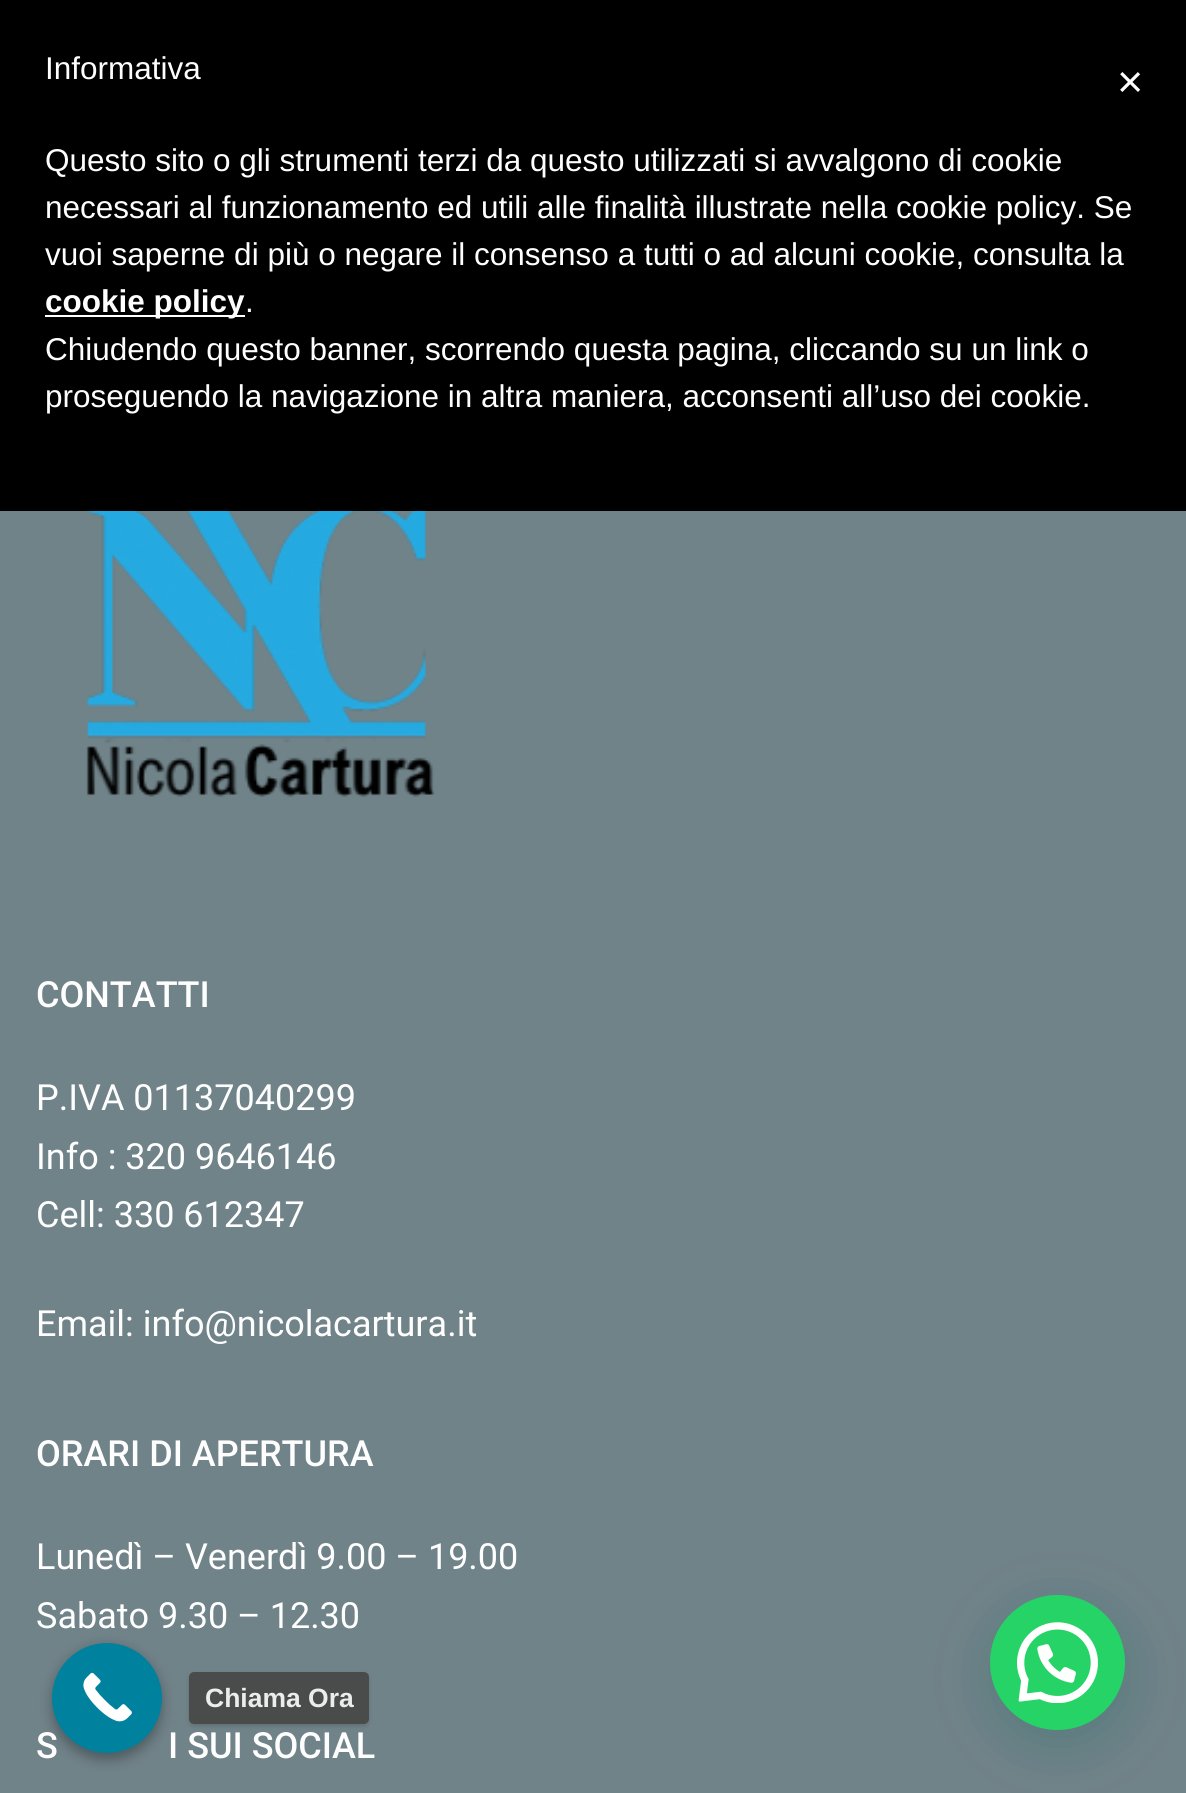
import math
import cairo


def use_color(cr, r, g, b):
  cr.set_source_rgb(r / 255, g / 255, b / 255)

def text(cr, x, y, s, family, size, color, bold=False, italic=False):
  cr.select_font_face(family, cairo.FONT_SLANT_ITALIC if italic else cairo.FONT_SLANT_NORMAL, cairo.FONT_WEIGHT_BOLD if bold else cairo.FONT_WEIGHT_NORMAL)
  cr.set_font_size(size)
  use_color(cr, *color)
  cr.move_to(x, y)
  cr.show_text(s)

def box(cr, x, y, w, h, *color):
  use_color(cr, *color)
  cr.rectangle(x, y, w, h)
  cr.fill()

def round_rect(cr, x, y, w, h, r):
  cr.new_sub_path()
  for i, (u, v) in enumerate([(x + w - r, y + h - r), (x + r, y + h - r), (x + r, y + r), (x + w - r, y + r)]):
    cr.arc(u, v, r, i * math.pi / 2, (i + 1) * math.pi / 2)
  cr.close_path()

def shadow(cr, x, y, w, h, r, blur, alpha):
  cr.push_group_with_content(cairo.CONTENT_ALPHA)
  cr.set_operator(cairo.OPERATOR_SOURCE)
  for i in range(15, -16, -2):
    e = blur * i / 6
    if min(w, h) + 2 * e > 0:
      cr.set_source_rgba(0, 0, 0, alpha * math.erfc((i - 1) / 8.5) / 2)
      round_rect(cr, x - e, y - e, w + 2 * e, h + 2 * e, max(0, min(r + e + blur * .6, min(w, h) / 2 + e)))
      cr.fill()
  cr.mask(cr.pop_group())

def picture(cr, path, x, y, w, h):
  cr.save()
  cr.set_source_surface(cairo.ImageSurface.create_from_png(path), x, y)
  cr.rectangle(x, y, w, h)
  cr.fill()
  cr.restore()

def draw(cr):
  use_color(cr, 112, 131, 137)
  cr.paint()
  box(cr, 0, 0, 1186, 511, 0, 0, 0)
  box(cr, 45, 315, 200, 2, 255, 255, 255)
  picture(cr, "img_01.png", 86, 511, 349, 286)
  use_color(cr, 7, 94, 84)
  shadow(cr, 992, 1609, 135, 135, 67.5, 27, 0.24)
  use_color(cr, 37, 211, 102)
  cr.arc(1057.5, 1662.5, 67.5, 0, 2 * math.pi)
  cr.fill()
  picture(cr, "img_02.png", 1017, 1622, 81, 81)
  use_color(cr, 0, 0, 0)
  shadow(cr, 52, 1647, 110, 113, 55, 6, 0.3)
  cr.save()
  cr.set_fill_rule(cairo.FILL_RULE_EVEN_ODD)
  cr.new_path()
  cr.move_to(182, 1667)
  cr.line_to(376, 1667)
  cr.line_to(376, 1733)
  cr.line_to(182, 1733)
  cr.close_path()
  cr.move_to(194, 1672)
  cr.line_to(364, 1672)
  cr.curve_to(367, 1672, 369, 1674, 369, 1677)
  cr.line_to(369, 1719)
  cr.curve_to(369, 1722, 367, 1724, 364, 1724)
  cr.line_to(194, 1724)
  cr.curve_to(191, 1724, 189, 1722, 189, 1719)
  cr.line_to(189, 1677)
  cr.curve_to(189, 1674, 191, 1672, 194, 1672)
  cr.close_path()
  cr.clip()
  shadow(cr, 189, 1674, 180, 52, 5, 2, 0.15)
  cr.restore()
  cr.set_source_rgba(0.275, 0.275, 0.275, 0.9)
  round_rect(cr, 189, 1672, 180, 52, 5)
  cr.fill()
  text(cr, 45, 79, "Informativa", "Liberation Sans", 31.5, (254, 254, 254))
  text(cr, 45, 171, "Questo sito o gli strumenti terzi da questo utilizzati si avvalgono di cookie", "Liberation Sans", 31.5, (254, 254, 254))
  text(cr, 45, 218, "necessari al funzionamento ed utili alle finalità illustrate nella cookie policy. Se", "Liberation Sans", 31.5, (254, 254, 254))
  text(cr, 45, 265, "vuoi saperne di più o negare il consenso a tutti o ad alcuni cookie, consulta la", "Liberation Sans", 31.5, (254, 254, 254))
  text(cr, 45, 312, "cookie policy", "Liberation Sans", 31.5, (254, 254, 254), bold=True)
  text(cr, 245, 312, ".", "Liberation Sans", 31.5, (254, 254, 254))
  text(cr, 45, 360, "Chiudendo questo banner, scorrendo questa pagina, cliccando su un link o", "Liberation Sans", 31.5, (254, 254, 254))
  text(cr, 45, 407, "proseguendo la navigazione in altra maniera, acconsenti all’uso dei cookie.", "Liberation Sans", 31.5, (254, 254, 254))
  text(cr, 1117, 97, "×", "Liberation Sans", 45, (254, 254, 254))
  text(cr, 36, 1007, "CONTATTI", "Roboto Medium", 36, (254, 254, 254))
  text(cr, 36, 1110, "P.IVA 01137040299", "Roboto", 36, (254, 254, 254))
  text(cr, 36, 1169, "Info : 320 9646146", "Roboto", 36, (254, 254, 254))
  text(cr, 36, 1227, "Cell: 330 612347", "Roboto", 36, (254, 254, 254))
  text(cr, 36, 1336, "Email: info@nicolacartura.it", "Roboto", 36, (254, 254, 254))
  text(cr, 36, 1466, "ORARI DI APERTURA", "Roboto Medium", 36, (254, 254, 254))
  text(cr, 36, 1569, "Lunedì – Venerdì 9.00 – 19.00", "Roboto", 36, (254, 254, 254))
  text(cr, 36, 1628, "Sabato 9.30 – 12.30", "Roboto", 36, (254, 254, 254))
  text(cr, 36, 1758, "S", "Roboto Medium", 36, (254, 254, 254))
  text(cr, 168, 1758, "I SUI SOCIAL", "Roboto Medium", 36, (254, 254, 254))
  use_color(cr, 0, 129, 158)
  cr.new_path()
  cr.arc(107, 1698, 55, 0, 2 * math.pi)
  cr.fill()
  picture(cr, "img_03.png", 83, 1672, 49, 50)
  text(cr, 205, 1707, "Chiama Ora", "Liberation Sans", 26.5, (236, 236, 236), bold=True)


surface = cairo.ImageSurface(cairo.FORMAT_RGB24, 1186, 1793)
cr = cairo.Context(surface)
options = cairo.FontOptions()
options.set_hint_metrics(cairo.HINT_METRICS_OFF)
options.set_hint_style(cairo.HINT_STYLE_NONE)
cr.set_font_options(options)
cr.set_miter_limit(4)
draw(cr)
surface.write_to_png("out.png")
